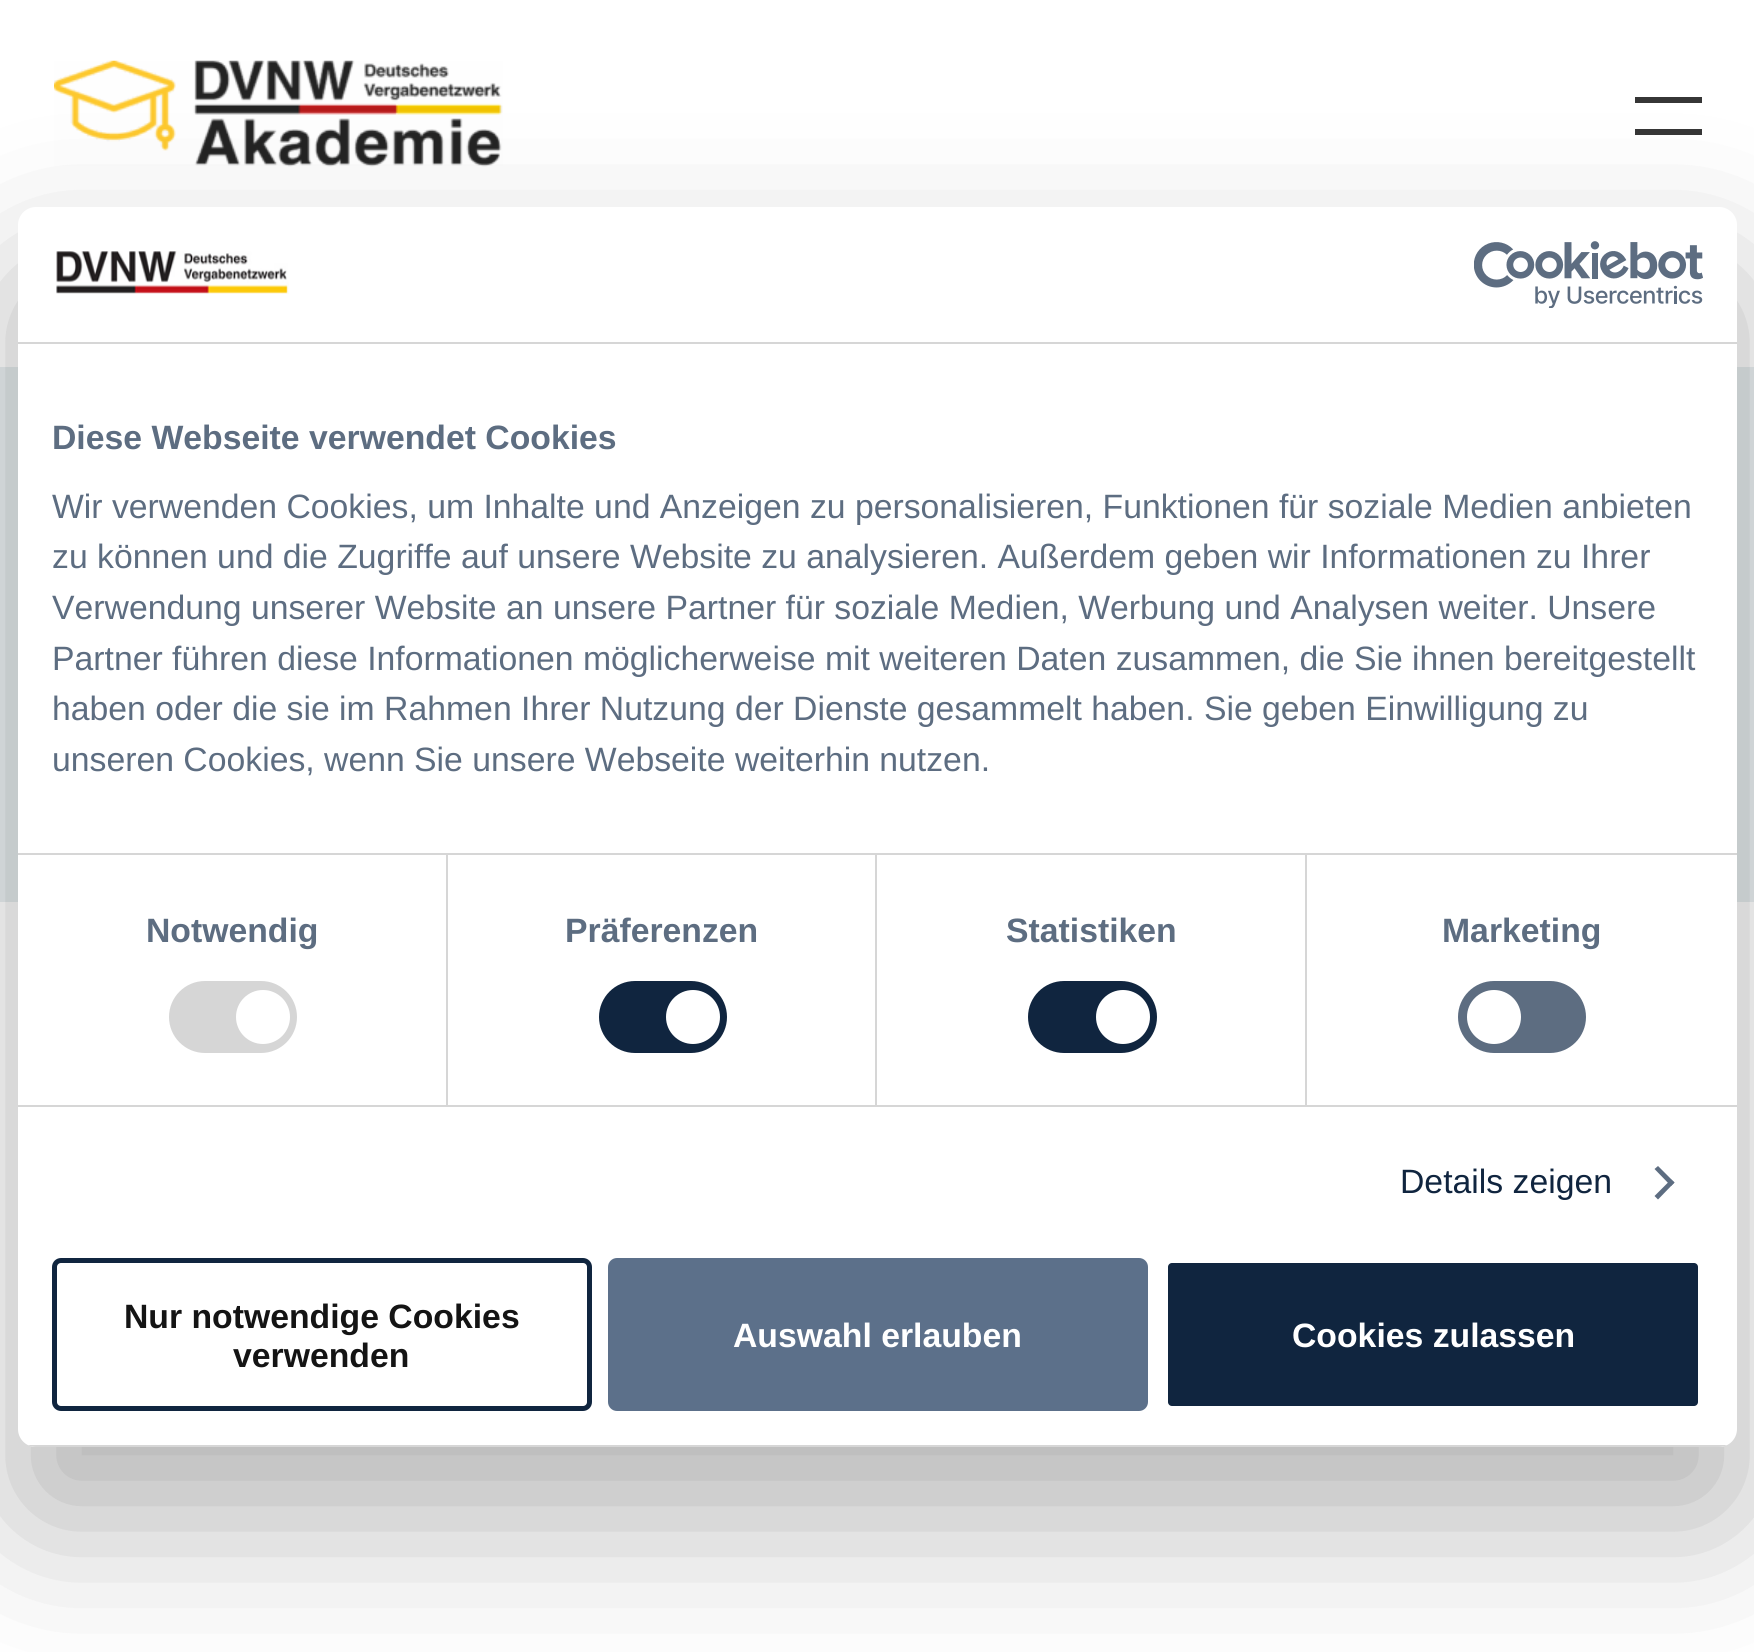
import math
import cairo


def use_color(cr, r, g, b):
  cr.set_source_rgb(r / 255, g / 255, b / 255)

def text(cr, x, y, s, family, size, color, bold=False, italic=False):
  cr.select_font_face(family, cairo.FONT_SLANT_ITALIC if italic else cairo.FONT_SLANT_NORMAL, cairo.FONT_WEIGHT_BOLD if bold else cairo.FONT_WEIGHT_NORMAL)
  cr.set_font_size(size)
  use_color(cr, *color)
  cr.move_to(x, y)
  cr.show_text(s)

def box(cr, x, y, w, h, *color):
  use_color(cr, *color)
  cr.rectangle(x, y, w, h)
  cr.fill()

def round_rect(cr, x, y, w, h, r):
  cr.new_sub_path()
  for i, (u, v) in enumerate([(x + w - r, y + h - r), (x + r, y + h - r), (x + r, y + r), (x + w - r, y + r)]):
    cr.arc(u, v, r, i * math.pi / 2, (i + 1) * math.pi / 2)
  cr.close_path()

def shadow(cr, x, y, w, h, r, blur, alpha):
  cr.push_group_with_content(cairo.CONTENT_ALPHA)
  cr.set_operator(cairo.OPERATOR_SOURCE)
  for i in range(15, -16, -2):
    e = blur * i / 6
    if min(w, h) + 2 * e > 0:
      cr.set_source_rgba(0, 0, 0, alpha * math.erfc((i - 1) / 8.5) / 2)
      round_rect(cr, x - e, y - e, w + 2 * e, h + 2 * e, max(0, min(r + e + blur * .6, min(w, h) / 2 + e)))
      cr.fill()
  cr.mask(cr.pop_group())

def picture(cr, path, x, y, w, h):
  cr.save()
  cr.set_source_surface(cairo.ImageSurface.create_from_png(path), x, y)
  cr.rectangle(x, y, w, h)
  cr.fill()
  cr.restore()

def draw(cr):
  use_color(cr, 255, 255, 255)
  cr.paint()
  picture(cr, "img_01.png", 54, 60, 449, 107)
  box(cr, 1635, 97, 67, 6, 54, 54, 54)
  box(cr, 1635, 129, 67, 6, 54, 54, 54)
  box(cr, 0, 367, 1754, 535, 232, 238, 240)
  use_color(cr, 0, 0, 0)
  shadow(cr, 18, 279, 1719, 1240, 18, 76.5, 0.3)
  use_color(cr, 255, 255, 255)
  round_rect(cr, 18, 207, 1719, 1240, 18)
  cr.fill()
  box(cr, 18, 342, 1719, 2, 214, 214, 214)
  picture(cr, "img_02.png", 56, 251, 233, 43)
  picture(cr, "img_03.png", 1474, 241, 229, 67)
  box(cr, 18, 853, 1719, 2, 214, 214, 214)
  box(cr, 18, 1105, 1719, 2, 214, 214, 214)
  box(cr, 446, 855, 2, 250, 214, 214, 214)
  round_rect(cr, 169, 981, 128, 72, 36)
  cr.fill()
  use_color(cr, 255, 255, 255)
  cr.arc(263, 1017, 27, 0, 2 * math.pi)
  cr.fill()
  box(cr, 875, 855, 2, 250, 214, 214, 214)
  use_color(cr, 16, 37, 63)
  round_rect(cr, 599, 981, 128, 72, 36)
  cr.fill()
  use_color(cr, 255, 255, 255)
  cr.arc(693, 1017, 27, 0, 2 * math.pi)
  cr.fill()
  box(cr, 1305, 855, 2, 250, 214, 214, 214)
  use_color(cr, 16, 37, 63)
  round_rect(cr, 1028, 981, 129, 72, 36)
  cr.fill()
  use_color(cr, 255, 255, 255)
  cr.arc(1123, 1017, 27, 0, 2 * math.pi)
  cr.fill()
  use_color(cr, 93, 109, 129)
  round_rect(cr, 1458, 981, 128, 72, 36)
  cr.fill()
  use_color(cr, 255, 255, 255)
  cr.arc(1494, 1017, 27, 0, 2 * math.pi)
  cr.fill()
  use_color(cr, 93, 109, 129)
  cr.new_path()
  cr.move_to(1658, 1166)
  cr.line_to(1674.5, 1182.5)
  cr.line_to(1671, 1186)
  cr.line_to(1654.5, 1169)
  cr.close_path()
  cr.fill()
  cr.new_path()
  cr.move_to(1671, 1179.5)
  cr.line_to(1674.5, 1182.5)
  cr.line_to(1658, 1199.5)
  cr.line_to(1654.5, 1196)
  cr.close_path()
  cr.fill()
  cr.save()
  round_rect(cr, 18, 207, 1719, 1240, 18)
  cr.clip()
  box(cr, 28, 1445, 1699, 2, 214, 214, 214)
  cr.restore()
  round_rect(cr, 54.5, 1260.5, 535, 148, 6.5)
  use_color(cr, 16, 37, 63)
  cr.set_line_width(5)
  cr.stroke()
  use_color(cr, 92, 112, 138)
  round_rect(cr, 610.5, 1260.5, 535, 148, 6.5)
  cr.fill_preserve()
  cr.stroke()
  use_color(cr, 16, 37, 63)
  round_rect(cr, 1165.5, 1260.5, 535, 148, 6.5)
  cr.fill_preserve()
  use_color(cr, 255, 255, 255)
  cr.stroke()
  text(cr, 52, 449, "Diese Webseite verwendet Cookies", "Liberation Sans", 33.75, (93, 109, 129), bold=True)
  text(cr, 52, 518, "Wir verwenden Cookies, um Inhalte und Anzeigen zu personalisieren, Funktionen für soziale Medien anbieten", "Liberation Sans", 33.75, (93, 109, 129))
  text(cr, 52, 568, "zu können und die Zugriffe auf unsere Website zu analysieren. Außerdem geben wir Informationen zu Ihrer", "Liberation Sans", 33.75, (93, 109, 129))
  text(cr, 52, 619, "Verwendung unserer Website an unsere Partner für soziale Medien, Werbung und Analysen weiter. Unsere", "Liberation Sans", 33.75, (93, 109, 129))
  text(cr, 52, 670, "Partner führen diese Informationen möglicherweise mit weiteren Daten zusammen, die Sie ihnen bereitgestellt", "Liberation Sans", 33.75, (93, 109, 129))
  text(cr, 52, 720, "haben oder die sie im Rahmen Ihrer Nutzung der Dienste gesammelt haben. Sie geben Einwilligung zu", "Liberation Sans", 33.75, (93, 109, 129))
  text(cr, 52, 771, "unseren Cookies, wenn Sie unsere Webseite weiterhin nutzen.", "Liberation Sans", 33.75, (93, 109, 129))
  text(cr, 146, 942, "Notwendig", "Liberation Sans", 33.75, (93, 109, 129), bold=True)
  text(cr, 565, 942, "Präferenzen", "Liberation Sans", 33.75, (93, 109, 129), bold=True)
  text(cr, 1006, 942, "Statistiken", "Liberation Sans", 33.75, (93, 109, 129), bold=True)
  text(cr, 1442, 942, "Marketing", "Liberation Sans", 33.75, (93, 109, 129), bold=True)
  text(cr, 1400, 1193, "Details zeigen", "Liberation Sans", 33.75, (16, 37, 63))
  text(cr, 124, 1328, "Nur notwendige Cookies", "Liberation Sans", 33.75, (20, 20, 20), bold=True)
  text(cr, 233, 1367, "verwenden", "Liberation Sans", 33.75, (20, 20, 20), bold=True)
  text(cr, 733, 1347, "Auswahl erlauben", "Liberation Sans", 33.75, (255, 255, 255), bold=True)
  text(cr, 1292, 1347, "Cookies zulassen", "Liberation Sans", 33.75, (255, 255, 255), bold=True)


surface = cairo.ImageSurface(cairo.FORMAT_RGB24, 1754, 1652)
cr = cairo.Context(surface)
options = cairo.FontOptions()
options.set_hint_metrics(cairo.HINT_METRICS_OFF)
options.set_hint_style(cairo.HINT_STYLE_NONE)
cr.set_font_options(options)
cr.set_miter_limit(4)
draw(cr)
surface.write_to_png("out.png")
